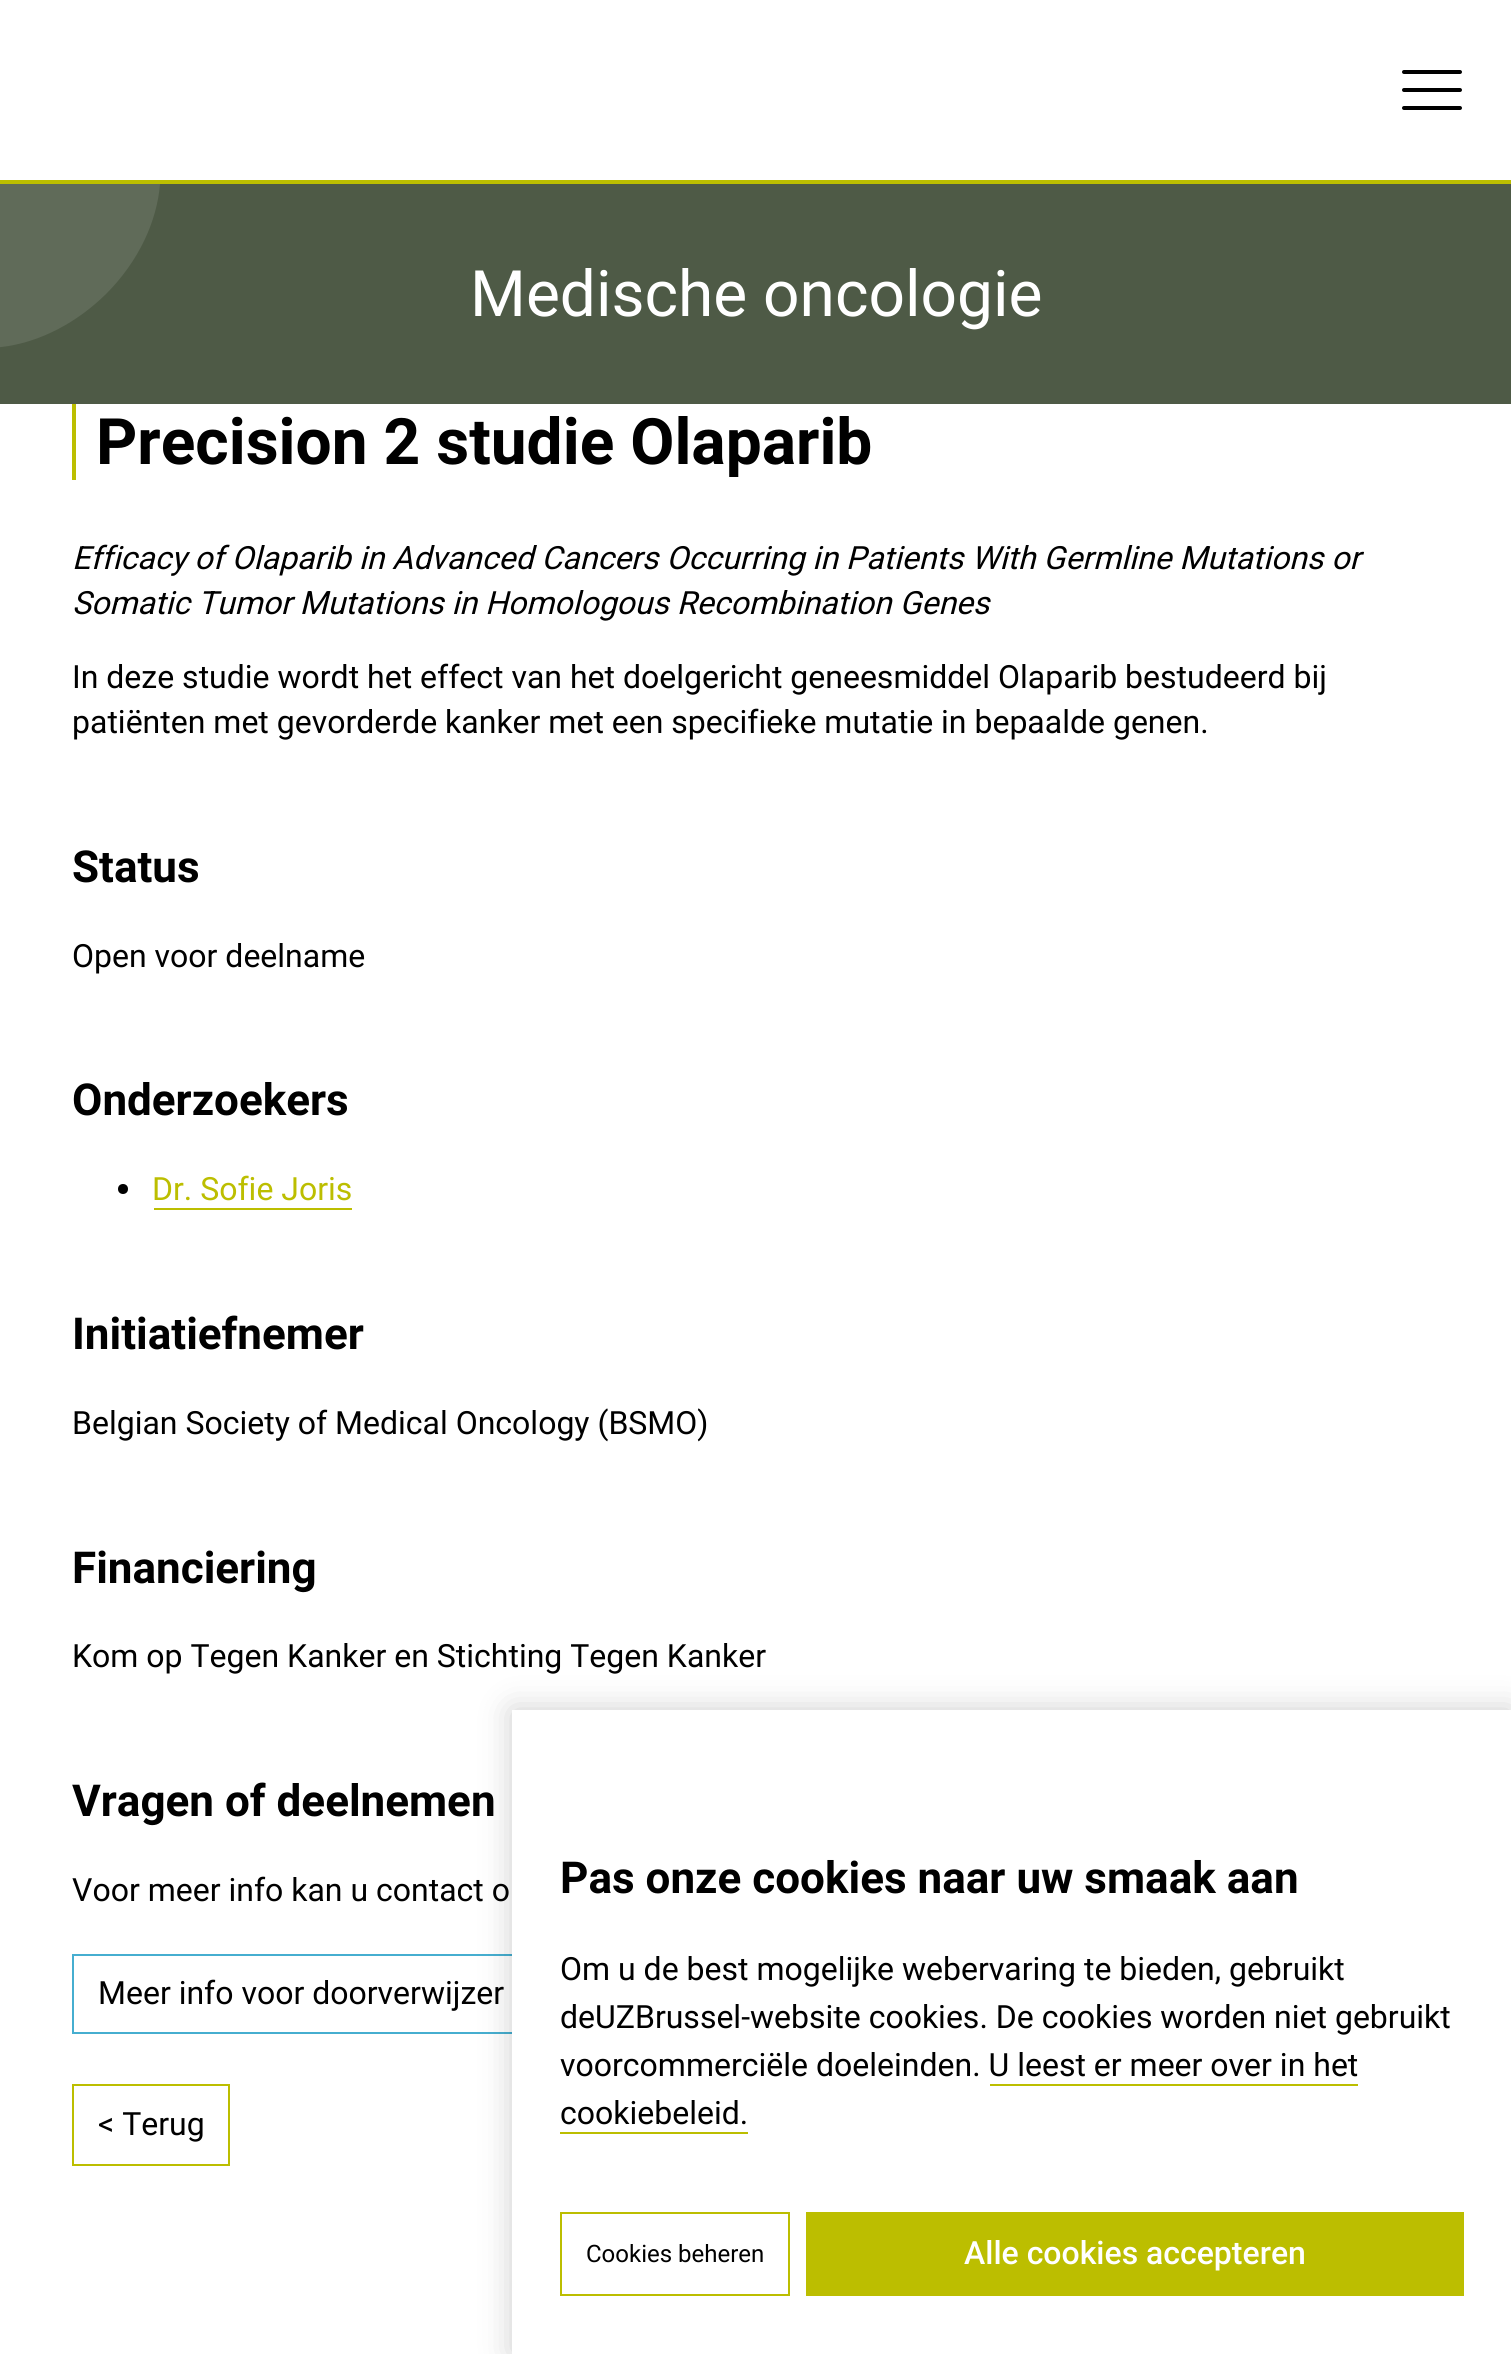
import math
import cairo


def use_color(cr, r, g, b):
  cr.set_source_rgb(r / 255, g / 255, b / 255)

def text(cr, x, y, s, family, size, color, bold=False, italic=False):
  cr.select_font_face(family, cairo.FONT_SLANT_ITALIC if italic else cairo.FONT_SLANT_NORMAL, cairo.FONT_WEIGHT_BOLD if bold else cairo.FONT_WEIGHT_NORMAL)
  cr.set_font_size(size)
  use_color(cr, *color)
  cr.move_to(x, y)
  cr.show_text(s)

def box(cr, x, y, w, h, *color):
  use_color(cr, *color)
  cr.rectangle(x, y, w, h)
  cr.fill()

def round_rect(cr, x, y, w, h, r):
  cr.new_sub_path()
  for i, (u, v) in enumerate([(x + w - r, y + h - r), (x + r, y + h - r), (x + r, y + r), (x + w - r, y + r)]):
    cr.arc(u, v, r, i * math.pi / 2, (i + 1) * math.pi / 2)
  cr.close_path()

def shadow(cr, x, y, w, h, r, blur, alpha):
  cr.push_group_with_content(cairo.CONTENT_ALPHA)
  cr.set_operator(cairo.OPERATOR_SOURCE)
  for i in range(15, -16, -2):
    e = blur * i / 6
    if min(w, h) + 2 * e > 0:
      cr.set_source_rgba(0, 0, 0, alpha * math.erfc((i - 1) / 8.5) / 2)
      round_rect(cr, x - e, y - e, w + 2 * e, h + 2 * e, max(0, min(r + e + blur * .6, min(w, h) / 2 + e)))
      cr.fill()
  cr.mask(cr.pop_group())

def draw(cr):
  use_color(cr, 255, 255, 255)
  cr.paint()
  box(cr, 0, 180, 1511, 4, 188, 190, 0)
  use_color(cr, 0, 0, 0)
  round_rect(cr, 1402, 70, 60, 4, 2)
  cr.fill()
  round_rect(cr, 1402, 88, 60, 4, 2)
  cr.fill()
  round_rect(cr, 1402, 106, 60, 4, 2)
  cr.fill()
  box(cr, 0, 184, 1511, 220, 78, 90, 70)
  use_color(cr, 96, 107, 89)
  cr.new_path()
  cr.move_to(-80, 324)
  cr.curve_to(-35, 365, 47, 352, 106, 294)
  cr.curve_to(139, 261, 157, 221, 160, 184)
  cr.line_to(-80, 184)
  cr.close_path()
  cr.fill()
  box(cr, 72, 404, 4, 76, 188, 190, 0)
  use_color(cr, 0, 0, 0)
  cr.arc(123, 1189, 5, 0, 2 * math.pi)
  cr.fill()
  box(cr, 154, 1208, 198, 2, 188, 190, 0)
  cr.rectangle(73, 1955, 498, 78)
  use_color(cr, 70, 174, 208)
  cr.stroke()
  cr.rectangle(73, 2085, 156, 80)
  use_color(cr, 188, 190, 0)
  cr.stroke()
  use_color(cr, 0, 0, 0)
  shadow(cr, 512, 1710, 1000, 644, 0, 16, 0.2)
  box(cr, 512, 1710, 999, 644, 255, 255, 255)
  box(cr, 990, 2084, 368, 2, 188, 190, 0)
  box(cr, 560, 2132, 188, 2, 188, 190, 0)
  cr.rectangle(561, 2213, 228, 82)
  cr.stroke()
  box(cr, 806, 2212, 658, 84, 188, 190, 0)
  text(cr, 470, 316, "Medische oncologie", "Roboto", 64, (255, 255, 255))
  text(cr, 96, 464, "Precision 2 studie Olaparib", "Roboto", 64, (0, 0, 0), bold=True)
  text(cr, 72, 569, "Efficacy of Olaparib in Advanced Cancers Occurring in Patients With Germline Mutations or", "Roboto", 32, (0, 0, 0), italic=True)
  text(cr, 72, 614, "Somatic Tumor Mutations in Homologous Recombination Genes", "Roboto", 32, (0, 0, 0), italic=True)
  text(cr, 72, 688, "In deze studie wordt het effect van het doelgericht geneesmiddel Olaparib bestudeerd bij", "Roboto", 32, (0, 0, 0))
  text(cr, 72, 733, "patiënten met gevorderde kanker met een specifieke mutatie in bepaalde genen.", "Roboto", 32, (0, 0, 0))
  text(cr, 72, 882, "Status", "Roboto", 44, (0, 0, 0), bold=True)
  text(cr, 72, 967, "Open voor deelname", "Roboto", 32, (0, 0, 0))
  text(cr, 72, 1115, "Onderzoekers", "Roboto", 44, (0, 0, 0), bold=True)
  text(cr, 152, 1200, "Dr. Sofie Joris", "Roboto", 32, (188, 190, 0))
  text(cr, 72, 1349, "Initiatiefnemer", "Roboto", 44, (0, 0, 0), bold=True)
  text(cr, 72, 1434, "Belgian Society of Medical Oncology (BSMO)", "Roboto", 32, (0, 0, 0))
  text(cr, 72, 1583, "Financiering", "Roboto", 44, (0, 0, 0), bold=True)
  text(cr, 72, 1667, "Kom op Tegen Kanker en Stichting Tegen Kanker", "Roboto", 32, (0, 0, 0))
  text(cr, 72, 1816, "Vragen of deelnemen", "Roboto", 44, (0, 0, 0), bold=True)
  text(cr, 72, 1901, "Voor meer info kan u contact o", "Roboto", 32, (0, 0, 0))
  text(cr, 98, 2004, "Meer info voor doorverwijzer", "Roboto", 32, (0, 0, 0))
  text(cr, 98, 2135, "< Terug", "Roboto", 32, (0, 0, 0))
  text(cr, 560, 1893, "Pas onze cookies naar uw smaak aan", "Roboto", 44, (0, 0, 0), bold=True)
  text(cr, 560, 1980, "Om u de best mogelijke webervaring te bieden, gebruikt", "Roboto", 32, (0, 0, 0))
  text(cr, 560, 2028, "deUZBrussel-website cookies. De cookies worden niet gebruikt", "Roboto", 32, (0, 0, 0))
  text(cr, 560, 2076, "voorcommerciële doeleinden. U leest er meer over in het", "Roboto", 32, (0, 0, 0))
  text(cr, 560, 2124, "cookiebeleid.", "Roboto", 32, (0, 0, 0))
  text(cr, 586, 2262, "Cookies beheren", "Roboto", 24, (0, 0, 0))
  text(cr, 964, 2264, "Alle cookies accepteren", "Roboto Medium", 32, (255, 255, 255))


surface = cairo.ImageSurface(cairo.FORMAT_RGB24, 1511, 2354)
cr = cairo.Context(surface)
options = cairo.FontOptions()
options.set_hint_metrics(cairo.HINT_METRICS_OFF)
options.set_hint_style(cairo.HINT_STYLE_NONE)
cr.set_font_options(options)
cr.set_miter_limit(4)
draw(cr)
surface.write_to_png("out.png")
